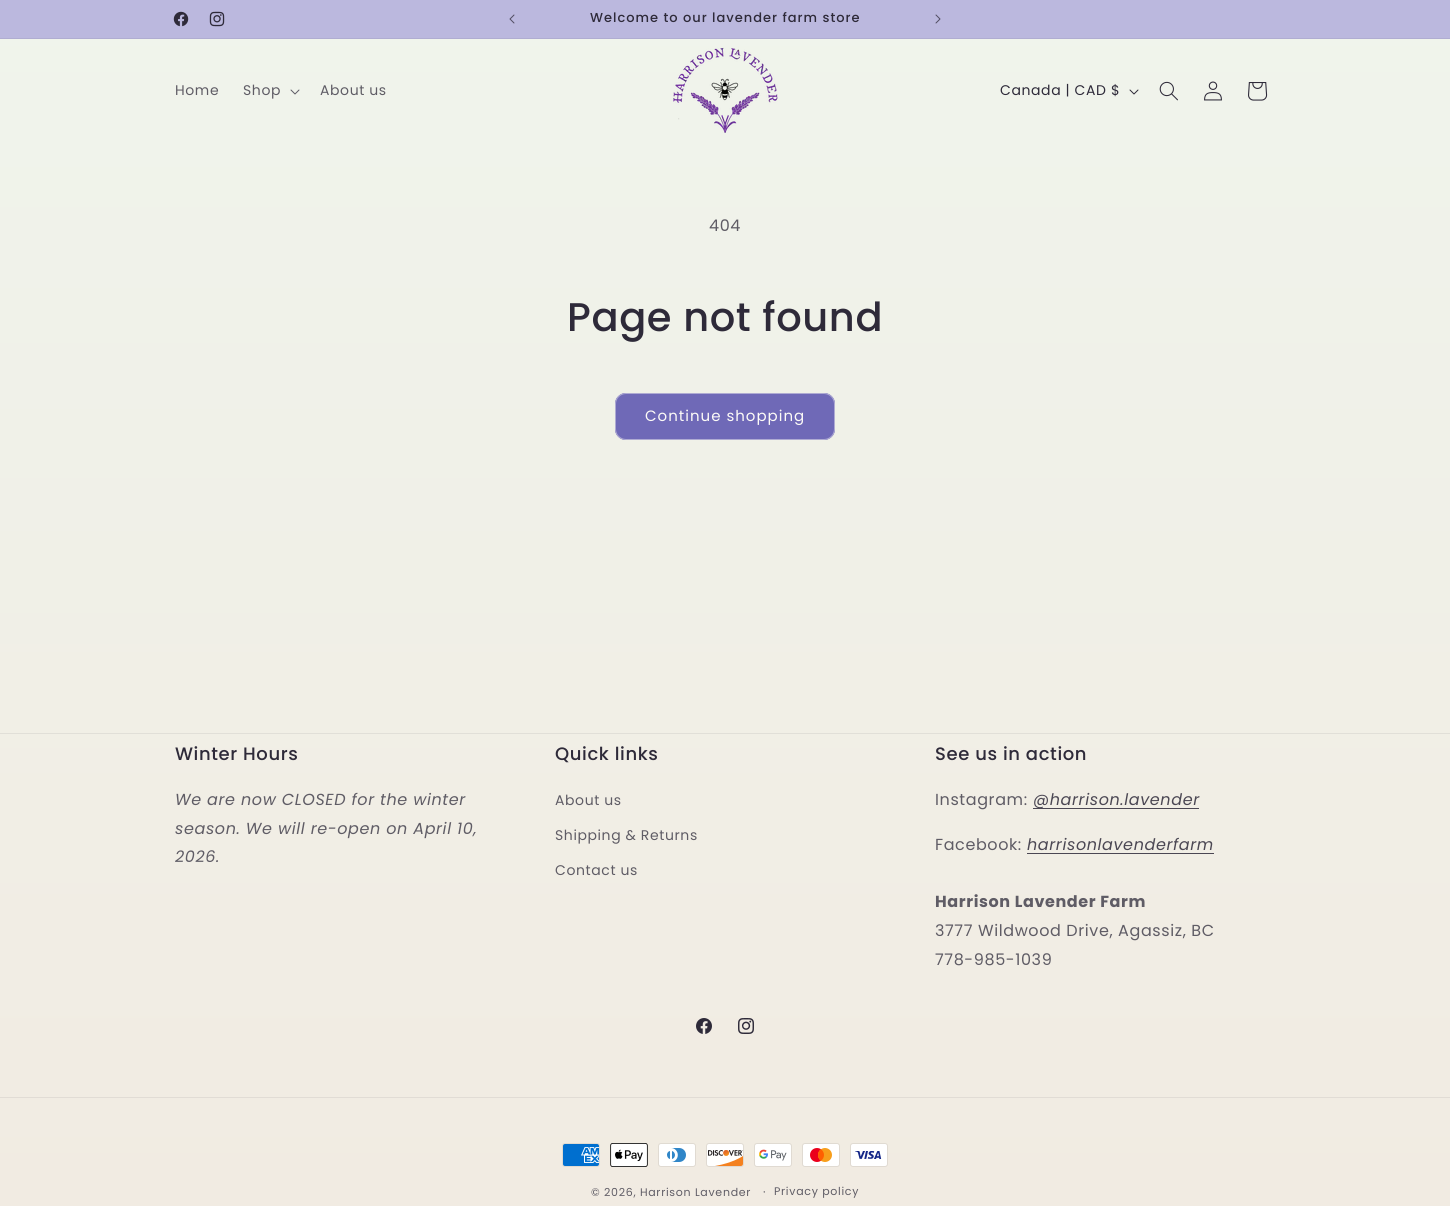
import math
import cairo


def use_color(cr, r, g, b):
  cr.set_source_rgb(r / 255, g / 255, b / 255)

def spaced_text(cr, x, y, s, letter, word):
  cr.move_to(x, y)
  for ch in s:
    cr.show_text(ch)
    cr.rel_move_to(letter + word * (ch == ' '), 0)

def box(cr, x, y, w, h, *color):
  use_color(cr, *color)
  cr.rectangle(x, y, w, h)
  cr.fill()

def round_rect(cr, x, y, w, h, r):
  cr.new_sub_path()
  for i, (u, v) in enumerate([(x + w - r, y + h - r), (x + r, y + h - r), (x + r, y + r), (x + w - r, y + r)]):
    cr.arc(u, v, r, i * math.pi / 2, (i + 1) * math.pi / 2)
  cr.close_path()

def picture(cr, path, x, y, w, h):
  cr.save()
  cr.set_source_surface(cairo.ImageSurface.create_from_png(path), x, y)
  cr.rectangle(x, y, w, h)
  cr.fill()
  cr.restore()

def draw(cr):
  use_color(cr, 255, 255, 255)
  cr.paint()
  gradient = cairo.LinearGradient(725, 0, 725, 1206)
  gradient.add_color_stop_rgba(0, 0.941, 0.957, 0.925, 1)
  gradient.add_color_stop_rgba(1, 0.945, 0.922, 0.886, 1)
  cr.set_source(gradient)
  cr.rectangle(0, 39, 1450, 1167)
  cr.fill()
  box(cr, 0, 0, 1450, 38, 187, 184, 222)
  box(cr, 0, 38, 1450, 1, 176, 173, 209)
  picture(cr, "img_01.png", 173, 11, 16, 16)
  picture(cr, "img_02.png", 209, 11, 16, 16)
  picture(cr, "img_03.png", 509, 14, 6, 10)
  picture(cr, "img_04.png", 935, 14, 6, 10)
  picture(cr, "img_05.png", 290, 89, 10, 6)
  picture(cr, "img_06.png", 673, 47, 105, 86)
  picture(cr, "img_07.png", 1129, 89, 10, 6)
  picture(cr, "img_08.png", 1159, 81, 19, 20)
  picture(cr, "img_09.png", 1204, 81, 18, 20)
  picture(cr, "img_10.png", 1248, 82, 20, 19)
  use_color(cr, 111, 105, 183)
  round_rect(cr, 615, 393, 220, 47, 11)
  cr.fill()
  round_rect(cr, 615.5, 393.5, 219, 46, 10.5)
  cr.set_line_width(1)
  cr.stroke()
  round_rect(cr, 615.5, 393.5, 219, 46, 10.5)
  cr.set_source_rgba(0.992, 0.984, 0.969, 0.45)
  cr.stroke()
  box(cr, 0, 733, 1450, 1, 225, 223, 216)
  box(cr, 1033, 808, 166, 1, 75, 71, 83)
  box(cr, 1027, 853, 187, 1, 75, 71, 83)
  picture(cr, "img_11.png", 696, 1018, 16, 16)
  picture(cr, "img_12.png", 738, 1018, 16, 16)
  box(cr, 0, 1097, 1450, 1, 225, 220, 213)
  picture(cr, "img_13.png", 562, 1143, 38, 24)
  picture(cr, "img_14.png", 610, 1143, 38, 24)
  picture(cr, "img_15.png", 658, 1143, 38, 24)
  picture(cr, "img_16.png", 706, 1143, 38, 24)
  picture(cr, "img_17.png", 754, 1143, 38, 24)
  picture(cr, "img_18.png", 802, 1143, 38, 24)
  picture(cr, "img_19.png", 850, 1143, 38, 24)
  cr.select_font_face("Poppins Medium")
  cr.set_font_size(13)
  use_color(cr, 46, 42, 57)
  spaced_text(cr, 590, 22, "Welcome to our lavender farm store", 1, 0)
  cr.select_font_face("Poppins")
  cr.set_font_size(14)
  use_color(cr, 95, 92, 101)
  spaced_text(cr, 175, 95, "Home", 0.6, 0)
  spaced_text(cr, 243, 95, "Shop", 0.6, 0)
  spaced_text(cr, 320, 95, "About us", 0.6, 0)
  use_color(cr, 46, 42, 57)
  spaced_text(cr, 1000, 95, "Canada | CAD $", 0.6, 0)
  cr.set_font_size(16)
  use_color(cr, 95, 92, 101)
  spaced_text(cr, 709, 231, "404", 0.6, 0)
  cr.select_font_face("Poppins Medium")
  cr.set_font_size(40)
  use_color(cr, 46, 42, 57)
  spaced_text(cr, 567, 331, "Page not found", 0.6, 0)
  cr.select_font_face("Poppins")
  cr.set_font_size(15)
  use_color(cr, 253, 251, 247)
  spaced_text(cr, 645, 421, "Continue shopping", 1, 0)
  cr.select_font_face("Poppins Medium")
  cr.set_font_size(18)
  use_color(cr, 46, 42, 57)
  spaced_text(cr, 175, 760, "Winter Hours", 0.6, 0)
  cr.select_font_face("Poppins", cairo.FONT_SLANT_ITALIC)
  cr.set_font_size(16)
  use_color(cr, 95, 92, 101)
  spaced_text(cr, 175, 805, "We are now CLOSED for the winter", 0.6, 0)
  spaced_text(cr, 175, 834, "season. We will re-open on April 10,", 0.6, 0)
  spaced_text(cr, 175, 862, "2026.", 0.6, 0)
  cr.select_font_face("Poppins Medium")
  cr.set_font_size(18)
  use_color(cr, 46, 42, 57)
  spaced_text(cr, 555, 760, "Quick links", 0.6, 0)
  cr.select_font_face("Poppins")
  cr.set_font_size(14)
  use_color(cr, 95, 92, 101)
  spaced_text(cr, 555, 805, "About us", 0.6, 0)
  spaced_text(cr, 555, 840, "Shipping & Returns", 0.6, 0)
  spaced_text(cr, 555, 875, "Contact us", 0.6, 0)
  cr.select_font_face("Poppins Medium")
  cr.set_font_size(18)
  use_color(cr, 46, 42, 57)
  spaced_text(cr, 935, 760, "See us in action", 0.6, 0)
  cr.select_font_face("Poppins")
  cr.set_font_size(16)
  use_color(cr, 95, 92, 101)
  spaced_text(cr, 935, 805, "Instagram:", 0.6, 0)
  cr.select_font_face("Poppins", cairo.FONT_SLANT_ITALIC)
  use_color(cr, 75, 71, 83)
  spaced_text(cr, 1033, 805, "@harrison.lavender", 0.6, 0)
  cr.select_font_face("Poppins")
  use_color(cr, 95, 92, 101)
  spaced_text(cr, 935, 850, "Facebook:", 0.6, 0)
  cr.select_font_face("Poppins", cairo.FONT_SLANT_ITALIC)
  use_color(cr, 75, 71, 83)
  spaced_text(cr, 1027, 850, "harrisonlavenderfarm", 0.6, 0)
  cr.select_font_face("Poppins", cairo.FONT_SLANT_NORMAL, cairo.FONT_WEIGHT_BOLD)
  use_color(cr, 95, 92, 101)
  spaced_text(cr, 935, 907, "Harrison Lavender Farm", 0.6, 0)
  cr.select_font_face("Poppins")
  spaced_text(cr, 935, 936, "3777 Wildwood Drive, Agassiz, BC", 0.6, 0)
  spaced_text(cr, 935, 965, "778-985-1039", 0.6, 0)
  cr.set_font_size(11)
  spaced_text(cr, 591, 1196, "© 2026, Harrison Lavender", 0.7, 0)
  cr.set_font_size(12)
  spaced_text(cr, 763, 1196, "·", 0.7, 0)
  cr.set_font_size(11)
  spaced_text(cr, 774, 1195, "Privacy policy", 0.7, 0)


surface = cairo.ImageSurface(cairo.FORMAT_RGB24, 1450, 1206)
cr = cairo.Context(surface)
options = cairo.FontOptions()
options.set_hint_metrics(cairo.HINT_METRICS_OFF)
options.set_hint_style(cairo.HINT_STYLE_NONE)
cr.set_font_options(options)
cr.set_miter_limit(4)
draw(cr)
surface.write_to_png("out.png")
